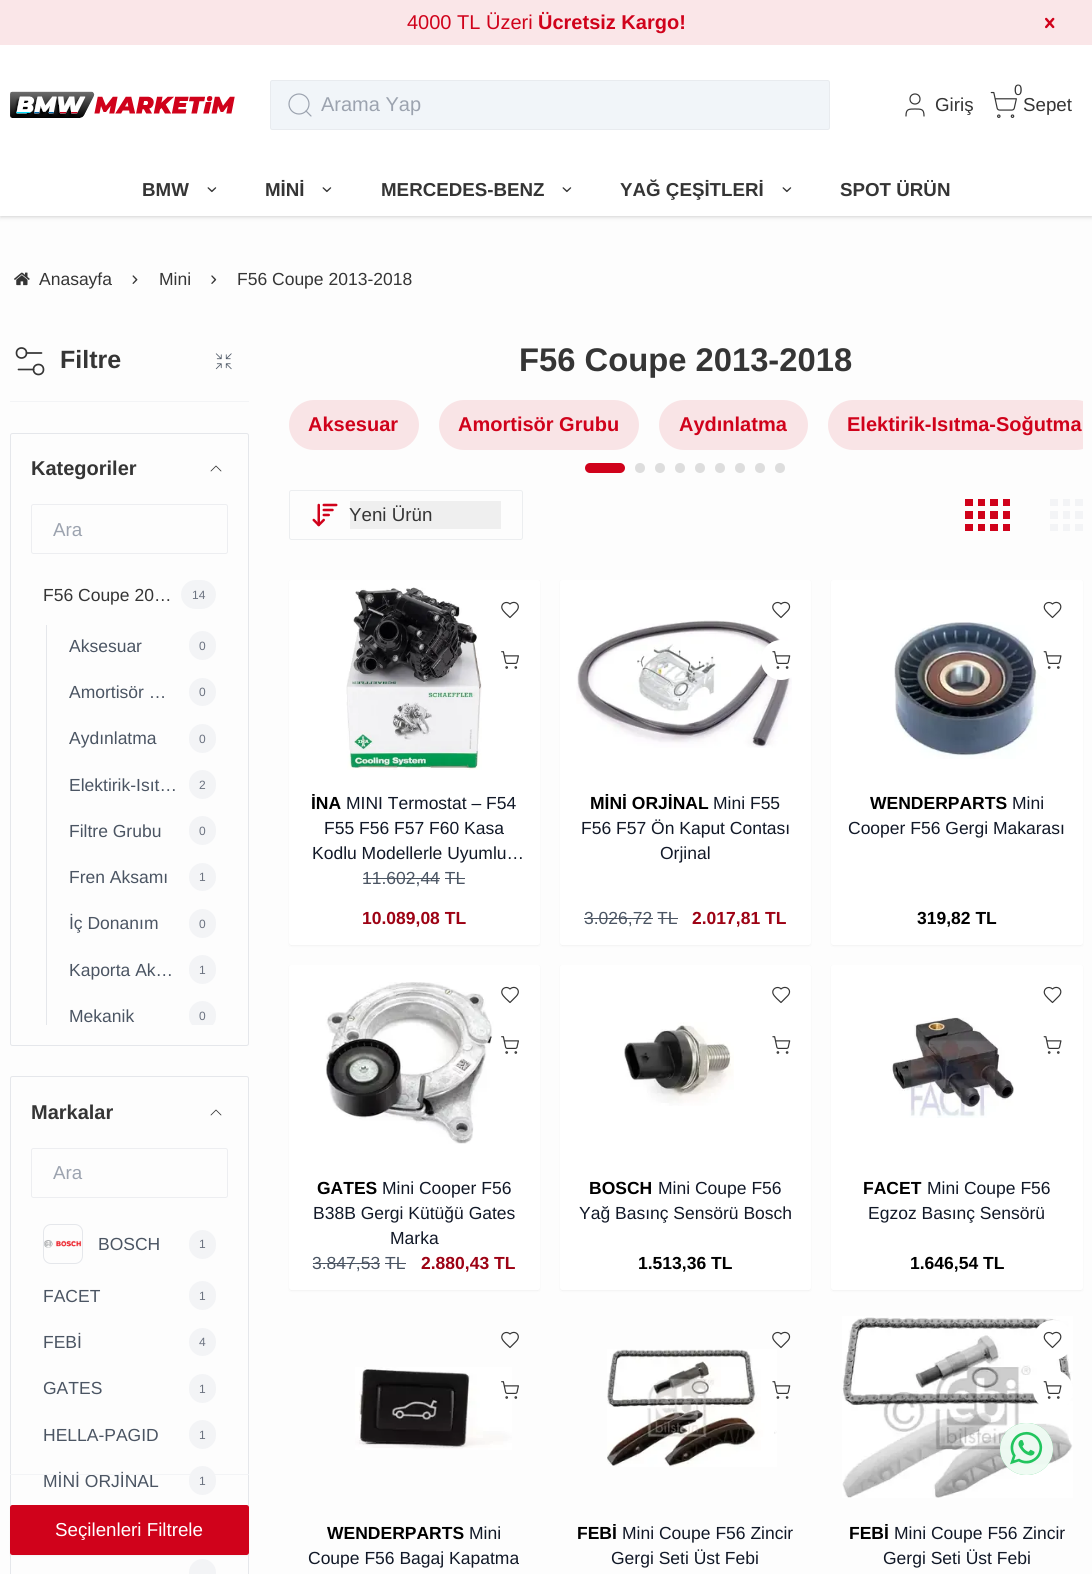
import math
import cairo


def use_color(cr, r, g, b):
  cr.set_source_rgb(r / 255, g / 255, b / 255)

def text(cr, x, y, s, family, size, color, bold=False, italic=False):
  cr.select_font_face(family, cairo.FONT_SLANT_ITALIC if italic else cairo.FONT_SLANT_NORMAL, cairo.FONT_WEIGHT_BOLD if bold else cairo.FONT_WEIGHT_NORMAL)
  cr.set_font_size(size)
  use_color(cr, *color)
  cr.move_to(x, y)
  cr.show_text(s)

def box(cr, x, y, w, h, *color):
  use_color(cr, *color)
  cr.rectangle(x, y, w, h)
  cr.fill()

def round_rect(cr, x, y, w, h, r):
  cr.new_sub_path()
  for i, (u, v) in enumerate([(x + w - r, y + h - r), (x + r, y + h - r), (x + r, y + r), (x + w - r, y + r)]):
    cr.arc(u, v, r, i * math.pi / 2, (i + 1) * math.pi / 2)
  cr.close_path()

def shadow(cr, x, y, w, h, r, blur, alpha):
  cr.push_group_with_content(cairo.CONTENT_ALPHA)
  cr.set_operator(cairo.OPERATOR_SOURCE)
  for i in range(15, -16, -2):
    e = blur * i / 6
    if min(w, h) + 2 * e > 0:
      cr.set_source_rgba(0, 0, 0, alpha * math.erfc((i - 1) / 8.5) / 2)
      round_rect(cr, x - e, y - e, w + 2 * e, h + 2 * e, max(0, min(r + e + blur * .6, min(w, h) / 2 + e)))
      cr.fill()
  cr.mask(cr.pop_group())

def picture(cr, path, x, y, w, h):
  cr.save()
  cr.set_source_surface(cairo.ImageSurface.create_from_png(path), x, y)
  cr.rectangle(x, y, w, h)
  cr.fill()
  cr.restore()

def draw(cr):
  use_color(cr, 253, 253, 253)
  cr.paint()
  use_color(cr, 0, 0, 0)
  shadow(cr, 1, 3, 1090, 213, 0, 1, 0.1)
  shadow(cr, 0, 1, 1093, 217, 0, 2, 0.1)
  box(cr, 0, 45, 1092, 171, 255, 255, 255)
  box(cr, 0, 0, 1092, 45, 250, 230, 232)
  picture(cr, "img_01.png", 1045, 17, 10, 12)
  picture(cr, "img_02.png", 10, 91, 225, 27)
  use_color(cr, 241, 245, 249)
  round_rect(cr, 270, 80, 560, 50, 2.5)
  cr.fill()
  round_rect(cr, 270.5, 80.5, 559, 49, 2)
  cr.set_source_rgba(0.898, 0.906, 0.922, 0.7)
  cr.set_line_width(1)
  cr.stroke()
  cr.arc(299, 104, 10, 0, 2 * math.pi)
  use_color(cr, 156, 163, 175)
  cr.set_line_width(1.2)
  cr.stroke()
  cr.new_path()
  cr.move_to(311, 116)
  cr.line_to(306, 111)
  cr.set_line_cap(cairo.LINE_CAP_ROUND)
  cr.set_line_join(cairo.LINE_JOIN_ROUND)
  cr.stroke()
  cr.new_path()
  cr.move_to(924, 116)
  cr.curve_to(924, 109, 921.5, 109, 915, 109)
  cr.curve_to(908.5, 109, 906, 109, 906, 116)
  use_color(cr, 53, 53, 53)
  cr.stroke()
  cr.arc(915, 99, 5, 0, 2 * math.pi)
  cr.set_line_cap(cairo.LINE_CAP_BUTT)
  cr.set_line_join(cairo.LINE_JOIN_MITER)
  cr.stroke()
  picture(cr, "img_03.png", 990, 91, 27, 27)
  picture(cr, "img_04.png", 207, 187, 10, 6)
  picture(cr, "img_04.png", 322, 187, 10, 6)
  picture(cr, "img_04.png", 562, 187, 10, 6)
  picture(cr, "img_04.png", 782, 187, 10, 6)
  picture(cr, "img_23.png", 842, 1316, 231, 182)
  cr.set_source_rgba(0.133, 0.773, 0.369, 0.75)
  round_rect(cr, 1000, 1423, 53, 52, 26)
  cr.fill()
  cr.set_source_rgba(1, 1, 1, 0.9)
  round_rect(cr, 1000, 1423, 53, 52, 26)
  cr.fill()
  picture(cr, "img_05.png", 1010, 1431, 33, 34)
  picture(cr, "img_06.png", 14, 272, 16, 14)
  picture(cr, "img_07.png", 132, 275, 6, 9)
  picture(cr, "img_08.png", 211, 275, 6, 9)
  box(cr, 10, 401, 239, 1, 243, 244, 246)
  cr.new_path()
  cr.move_to(33.5, 369.5)
  cr.line_to(18.5, 369.5)
  cr.move_to(41.5, 353)
  cr.line_to(26.5, 353)
  use_color(cr, 53, 53, 53)
  cr.set_line_width(1.7)
  cr.set_line_cap(cairo.LINE_CAP_ROUND)
  cr.set_line_join(cairo.LINE_JOIN_ROUND)
  cr.stroke()
  cr.arc(38.5, 369.5, 5, 0, 2 * math.pi)
  cr.set_line_cap(cairo.LINE_CAP_BUTT)
  cr.set_line_join(cairo.LINE_JOIN_MITER)
  cr.stroke()
  cr.arc(21.5, 353, 5, 0, 2 * math.pi)
  cr.stroke()
  picture(cr, "img_09.png", 215, 353, 17, 17)
  round_rect(cr, 10.5, 433.5, 238, 612, 2)
  use_color(cr, 229, 231, 235)
  cr.set_line_width(1)
  cr.stroke()
  cr.new_path()
  cr.move_to(221, 471)
  cr.line_to(216, 466)
  cr.line_to(211, 471)
  use_color(cr, 53, 53, 53)
  cr.set_line_width(0.8)
  cr.set_line_cap(cairo.LINE_CAP_ROUND)
  cr.set_line_join(cairo.LINE_JOIN_ROUND)
  cr.stroke()
  round_rect(cr, 31.5, 504.5, 196, 49, 2)
  use_color(cr, 237, 238, 241)
  cr.set_line_width(1)
  cr.set_line_cap(cairo.LINE_CAP_BUTT)
  cr.set_line_join(cairo.LINE_JOIN_MITER)
  cr.stroke()
  use_color(cr, 243, 244, 246)
  round_rect(cr, 181, 580, 35, 29, 14.5)
  cr.fill()
  box(cr, 46, 625, 1, 400, 229, 231, 235)
  use_color(cr, 243, 244, 246)
  round_rect(cr, 189, 631, 27, 29, 13.5)
  cr.fill()
  round_rect(cr, 189, 678, 27, 28, 13.5)
  cr.fill()
  round_rect(cr, 189, 724, 27, 29, 13.5)
  cr.fill()
  round_rect(cr, 189, 770, 27, 29, 13.5)
  cr.fill()
  round_rect(cr, 189, 816, 27, 29, 13.5)
  cr.fill()
  round_rect(cr, 189, 863, 27, 28, 13.5)
  cr.fill()
  round_rect(cr, 189, 909, 27, 29, 13.5)
  cr.fill()
  round_rect(cr, 189, 955, 27, 29, 13.5)
  cr.fill()
  cr.save()
  cr.rectangle(48, 625, 180, 400)
  cr.clip()
  round_rect(cr, 189, 1001, 27, 29, 13.5)
  cr.fill()
  cr.restore()
  round_rect(cr, 10.5, 1076.5, 238, 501, 2)
  use_color(cr, 229, 231, 235)
  cr.stroke()
  cr.new_path()
  cr.move_to(221, 1115)
  cr.line_to(216, 1110)
  cr.line_to(211, 1115)
  use_color(cr, 53, 53, 53)
  cr.set_line_width(0.8)
  cr.set_line_cap(cairo.LINE_CAP_ROUND)
  cr.set_line_join(cairo.LINE_JOIN_ROUND)
  cr.stroke()
  round_rect(cr, 31.5, 1148.5, 196, 49, 2)
  use_color(cr, 237, 238, 241)
  cr.set_line_width(1)
  cr.set_line_cap(cairo.LINE_CAP_BUTT)
  cr.set_line_join(cairo.LINE_JOIN_MITER)
  cr.stroke()
  round_rect(cr, 43.5, 1224.5, 39, 39, 7.5)
  use_color(cr, 229, 231, 235)
  cr.stroke()
  picture(cr, "img_10.png", 44, 1240, 38, 8)
  use_color(cr, 243, 244, 246)
  round_rect(cr, 189, 1230, 27, 29, 13.5)
  cr.fill()
  round_rect(cr, 189, 1281, 27, 29, 13.5)
  cr.fill()
  round_rect(cr, 189, 1328, 27, 28, 13.5)
  cr.fill()
  round_rect(cr, 189, 1374, 27, 29, 13.5)
  cr.fill()
  round_rect(cr, 189, 1420, 27, 29, 13.5)
  cr.fill()
  round_rect(cr, 189, 1466, 27, 29, 13.5)
  cr.fill()
  round_rect(cr, 189, 1559, 27, 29, 13.5)
  cr.fill()
  use_color(cr, 0, 0, 0)
  shadow(cr, 10, 1506, 239, 50, 2.5, 1, 0.05)
  use_color(cr, 208, 2, 27)
  round_rect(cr, 11.5, 1506.5, 236, 47, 1)
  cr.fill_preserve()
  cr.set_line_width(3)
  cr.stroke()
  use_color(cr, 249, 228, 230)
  round_rect(cr, 289, 400, 130, 50, 25)
  cr.fill()
  round_rect(cr, 439, 400, 200, 50, 25)
  cr.fill()
  round_rect(cr, 659, 400, 149, 50, 25)
  cr.fill()
  cr.save()
  cr.rectangle(289, 400, 794, 90)
  cr.clip()
  round_rect(cr, 828, 400, 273, 50, 25)
  cr.fill()
  cr.restore()
  use_color(cr, 208, 2, 27)
  round_rect(cr, 585, 463, 40, 10, 5)
  cr.fill()
  use_color(cr, 221, 221, 221)
  cr.arc(640, 468, 5, 0, 2 * math.pi)
  cr.fill()
  cr.arc(660, 468, 5, 0, 2 * math.pi)
  cr.fill()
  cr.arc(680, 468, 5, 0, 2 * math.pi)
  cr.fill()
  cr.arc(700, 468, 5, 0, 2 * math.pi)
  cr.fill()
  cr.arc(720, 468, 5, 0, 2 * math.pi)
  cr.fill()
  cr.arc(740, 468, 5, 0, 2 * math.pi)
  cr.fill()
  cr.arc(760, 468, 5, 0, 2 * math.pi)
  cr.fill()
  cr.arc(780, 468, 5, 0, 2 * math.pi)
  cr.fill()
  round_rect(cr, 289.5, 490.5, 233, 49, 2)
  use_color(cr, 236, 238, 240)
  cr.set_line_width(1)
  cr.stroke()
  picture(cr, "img_11.png", 312, 503, 26, 24)
  box(cr, 350, 501, 151, 28, 239, 239, 239)
  box(cr, 965, 499, 8, 7, 208, 2, 27)
  box(cr, 965, 511, 8, 8, 208, 2, 27)
  box(cr, 965, 524, 8, 7, 208, 2, 27)
  box(cr, 978, 499, 7, 7, 208, 2, 27)
  box(cr, 978, 511, 7, 8, 208, 2, 27)
  box(cr, 978, 524, 7, 7, 208, 2, 27)
  box(cr, 990, 499, 8, 7, 208, 2, 27)
  box(cr, 990, 511, 8, 8, 208, 2, 27)
  box(cr, 990, 524, 8, 7, 208, 2, 27)
  box(cr, 1003, 499, 7, 7, 208, 2, 27)
  box(cr, 1003, 511, 7, 8, 208, 2, 27)
  box(cr, 1003, 524, 7, 7, 208, 2, 27)
  box(cr, 1050, 499, 8, 7, 243, 244, 246)
  box(cr, 1050, 511, 8, 8, 243, 244, 246)
  box(cr, 1050, 524, 8, 7, 243, 244, 246)
  box(cr, 1063, 499, 7, 7, 243, 244, 246)
  box(cr, 1063, 511, 7, 8, 243, 244, 246)
  box(cr, 1063, 524, 7, 7, 243, 244, 246)
  box(cr, 1075, 499, 8, 7, 243, 244, 246)
  box(cr, 1075, 511, 8, 8, 243, 244, 246)
  box(cr, 1075, 524, 8, 7, 243, 244, 246)
  use_color(cr, 0, 0, 0)
  shadow(cr, 289, 581, 251, 365, 2.5, 1, 0.05)
  use_color(cr, 255, 255, 255)
  round_rect(cr, 289, 580, 251, 365, 2.5)
  cr.fill()
  picture(cr, "img_12.png", 346, 587, 136, 183)
  cr.new_path()
  cr.move_to(516, 611.5)
  cr.curve_to(522, 605.5, 515, 599.5, 510, 604)
  cr.curve_to(506.5, 600.5, 500.5, 603.5, 502, 608.5)
  cr.curve_to(503, 611.5, 508, 615.5, 510, 617.5)
  cr.close_path()
  use_color(cr, 53, 53, 53)
  cr.set_line_width(1.2)
  cr.set_line_cap(cairo.LINE_CAP_ROUND)
  cr.set_line_join(cairo.LINE_JOIN_ROUND)
  cr.stroke()
  picture(cr, "img_13.png", 501, 651, 18, 18)
  box(cr, 363, 878, 77, 1, 75, 85, 99)
  box(cr, 445, 878, 20, 1, 75, 85, 99)
  use_color(cr, 0, 0, 0)
  shadow(cr, 560, 581, 251, 365, 2.5, 1, 0.05)
  use_color(cr, 255, 255, 255)
  round_rect(cr, 560, 580, 251, 365, 2.5)
  cr.fill()
  cr.new_path()
  cr.move_to(787, 611.5)
  cr.curve_to(793.5, 605.5, 786, 599.5, 781, 604)
  cr.curve_to(778, 600.5, 771.5, 603.5, 773, 608.5)
  cr.curve_to(774, 611.5, 779, 615.5, 781, 617.5)
  cr.close_path()
  use_color(cr, 53, 53, 53)
  cr.stroke()
  picture(cr, "img_15.png", 576, 620, 216, 128)
  use_color(cr, 255, 255, 255)
  cr.arc(781, 660, 20, 0, 2 * math.pi)
  cr.fill()
  picture(cr, "img_14.png", 772, 651, 19, 18)
  box(cr, 584, 918, 69, 1, 75, 85, 99)
  box(cr, 658, 918, 20, 1, 75, 85, 99)
  use_color(cr, 0, 0, 0)
  shadow(cr, 831, 581, 252, 365, 2.5, 1, 0.05)
  use_color(cr, 255, 255, 255)
  round_rect(cr, 831, 580, 252, 365, 2.5)
  cr.fill()
  picture(cr, "img_16.png", 894, 622, 152, 137)
  cr.new_path()
  cr.move_to(1058.5, 611.5)
  cr.curve_to(1064.5, 605.5, 1057.5, 599.5, 1052.5, 604)
  cr.curve_to(1049, 600.5, 1043, 603.5, 1044.5, 608.5)
  cr.curve_to(1045.5, 611.5, 1050.5, 615.5, 1052.5, 617.5)
  cr.close_path()
  use_color(cr, 53, 53, 53)
  cr.stroke()
  use_color(cr, 255, 255, 255)
  cr.arc(1053, 660, 20, 0, 2 * math.pi)
  cr.fill()
  picture(cr, "img_17.png", 1043, 651, 19, 18)
  use_color(cr, 0, 0, 0)
  shadow(cr, 289, 966, 251, 325, 2.5, 1, 0.05)
  use_color(cr, 255, 255, 255)
  round_rect(cr, 289, 965, 251, 325, 2.5)
  cr.fill()
  picture(cr, "img_18.png", 325, 982, 172, 162)
  cr.new_path()
  cr.move_to(516, 996.5)
  cr.curve_to(522, 990.5, 515, 984.5, 510, 989)
  cr.curve_to(506.5, 985.5, 500.5, 988.5, 502, 993.5)
  cr.curve_to(503, 996.5, 508, 1000.5, 510, 1002.5)
  cr.close_path()
  use_color(cr, 53, 53, 53)
  cr.stroke()
  use_color(cr, 255, 255, 255)
  cr.arc(510, 1045, 20, 0, 2 * math.pi)
  cr.fill()
  picture(cr, "img_13.png", 501, 1036, 18, 18)
  box(cr, 313, 1263, 67, 1, 75, 85, 99)
  box(cr, 385, 1263, 21, 1, 75, 85, 99)
  use_color(cr, 0, 0, 0)
  shadow(cr, 560, 966, 251, 325, 2.5, 1, 0.05)
  use_color(cr, 255, 255, 255)
  round_rect(cr, 560, 965, 251, 325, 2.5)
  cr.fill()
  picture(cr, "img_19.png", 624, 1022, 110, 84)
  cr.new_path()
  cr.move_to(787, 996.5)
  cr.curve_to(793.5, 990.5, 786, 984.5, 781, 989)
  cr.curve_to(778, 985.5, 771.5, 988.5, 773, 993.5)
  cr.curve_to(774, 996.5, 779, 1000.5, 781, 1002.5)
  cr.close_path()
  use_color(cr, 53, 53, 53)
  cr.stroke()
  picture(cr, "img_14.png", 772, 1036, 19, 18)
  use_color(cr, 0, 0, 0)
  shadow(cr, 831, 966, 252, 325, 2.5, 1, 0.05)
  use_color(cr, 255, 255, 255)
  round_rect(cr, 831, 965, 252, 325, 2.5)
  cr.fill()
  picture(cr, "img_20.png", 890, 1017, 124, 101)
  cr.new_path()
  cr.move_to(1058.5, 996.5)
  cr.curve_to(1064.5, 990.5, 1057.5, 984.5, 1052.5, 989)
  cr.curve_to(1049, 985.5, 1043, 988.5, 1044.5, 993.5)
  cr.curve_to(1045.5, 996.5, 1050.5, 1000.5, 1052.5, 1002.5)
  cr.close_path()
  use_color(cr, 53, 53, 53)
  cr.stroke()
  picture(cr, "img_17.png", 1043, 1036, 19, 18)
  cr.new_path()
  cr.move_to(516, 1341.5)
  cr.curve_to(522, 1335.5, 515, 1329.5, 510, 1334)
  cr.curve_to(506.5, 1330.5, 500.5, 1333.5, 502, 1338.5)
  cr.curve_to(503, 1341.5, 508, 1345.5, 510, 1347.5)
  cr.close_path()
  cr.stroke()
  picture(cr, "img_21.png", 355, 1367, 157, 83)
  picture(cr, "img_13.png", 501, 1381, 18, 18)
  picture(cr, "img_22.png", 607, 1349, 170, 118)
  cr.new_path()
  cr.move_to(787, 1341.5)
  cr.curve_to(793.5, 1335.5, 786, 1329.5, 781, 1334)
  cr.curve_to(778, 1330.5, 771.5, 1333.5, 773, 1338.5)
  cr.curve_to(774, 1341.5, 779, 1345.5, 781, 1347.5)
  cr.close_path()
  cr.stroke()
  picture(cr, "img_14.png", 772, 1381, 19, 18)
  use_color(cr, 255, 255, 255)
  cr.arc(1053, 1340, 20, 0, 2 * math.pi)
  cr.fill()
  cr.new_path()
  cr.move_to(1058.5, 1341.5)
  cr.curve_to(1064.5, 1335.5, 1057.5, 1329.5, 1052.5, 1334)
  cr.curve_to(1049, 1330.5, 1043, 1333.5, 1044.5, 1338.5)
  cr.curve_to(1045.5, 1341.5, 1050.5, 1345.5, 1052.5, 1347.5)
  cr.close_path()
  use_color(cr, 53, 53, 53)
  cr.stroke()
  use_color(cr, 255, 255, 255)
  cr.arc(1053, 1390, 20, 0, 2 * math.pi)
  cr.fill()
  picture(cr, "img_17.png", 1043, 1381, 19, 18)
  text(cr, 407, 29, "4000 TL Üzeri", "Liberation Sans", 20, (208, 2, 27))
  text(cr, 538, 29, "Ücretsiz Kargo!", "Liberation Sans", 20, (208, 2, 27), bold=True)
  text(cr, 321, 111, "Arama Yap", "Liberation Sans", 20, (156, 163, 175))
  text(cr, 935, 111, "Giriş", "Liberation Sans", 18.75, (53, 53, 53))
  text(cr, 1014, 95, "0", "Liberation Sans", 15, (53, 53, 53))
  text(cr, 1023, 111, "Sepet", "Liberation Sans", 18.75, (53, 53, 53))
  text(cr, 142, 196, "BMW", "Liberation Sans", 18.75, (53, 53, 53), bold=True)
  text(cr, 265, 196, "MİNİ", "Liberation Sans", 18.75, (53, 53, 53), bold=True)
  text(cr, 381, 196, "MERCEDES-BENZ", "Liberation Sans", 18.75, (53, 53, 53), bold=True)
  text(cr, 620, 196, "YAĞ ÇEŞİTLERİ", "Liberation Sans", 18.75, (53, 53, 53), bold=True)
  text(cr, 840, 196, "SPOT ÜRÜN", "Liberation Sans", 18.75, (53, 53, 53), bold=True)
  text(cr, 39, 285, "Anasayfa", "Liberation Sans", 17.5, (53, 53, 53))
  text(cr, 159, 285, "Mini", "Liberation Sans", 17.5, (53, 53, 53))
  text(cr, 237, 285, "F56 Coupe 2013-2018", "Liberation Sans", 17.5, (53, 53, 53))
  text(cr, 60, 368, "Filtre", "Liberation Sans", 25, (53, 53, 53), bold=True)
  text(cr, 31, 475, "Kategoriler", "Liberation Sans", 20, (53, 53, 53), bold=True)
  text(cr, 53, 536, "Ara", "Liberation Sans", 18.75, (156, 163, 175))
  text(cr, 43, 601, "F56 Coupe 20…", "Liberation Sans", 17.5, (53, 53, 53))
  text(cr, 192, 599, "14", "Liberation Sans", 12, (107, 114, 128))
  text(cr, 69, 652, "Aksesuar", "Liberation Sans", 17.5, (75, 85, 99))
  text(cr, 199, 650, "0", "Liberation Sans", 12, (107, 114, 128))
  text(cr, 69, 698, "Amortisör …", "Liberation Sans", 17.5, (75, 85, 99))
  text(cr, 199, 696, "0", "Liberation Sans", 12, (107, 114, 128))
  text(cr, 69, 744, "Aydınlatma", "Liberation Sans", 17.5, (75, 85, 99))
  text(cr, 199, 743, "0", "Liberation Sans", 12, (107, 114, 128))
  text(cr, 69, 791, "Elektirik-Isıt…", "Liberation Sans", 17.5, (75, 85, 99))
  text(cr, 199, 789, "2", "Liberation Sans", 12, (107, 114, 128))
  text(cr, 69, 837, "Filtre Grubu", "Liberation Sans", 17.5, (75, 85, 99))
  text(cr, 199, 835, "0", "Liberation Sans", 12, (107, 114, 128))
  text(cr, 69, 883, "Fren Aksamı", "Liberation Sans", 17.5, (75, 85, 99))
  text(cr, 199, 881, "1", "Liberation Sans", 12, (107, 114, 128))
  text(cr, 69, 929, "İç Donanım", "Liberation Sans", 17.5, (75, 85, 99))
  text(cr, 199, 928, "0", "Liberation Sans", 12, (107, 114, 128))
  text(cr, 69, 976, "Kaporta Ak…", "Liberation Sans", 17.5, (75, 85, 99))
  text(cr, 199, 974, "1", "Liberation Sans", 12, (107, 114, 128))
  text(cr, 69, 1022, "Mekanik", "Liberation Sans", 17.5, (75, 85, 99))
  text(cr, 199, 1020, "0", "Liberation Sans", 12, (107, 114, 128))
  text(cr, 31, 1119, "Markalar", "Liberation Sans", 20, (53, 53, 53), bold=True)
  text(cr, 53, 1179, "Ara", "Liberation Sans", 18.75, (156, 163, 175))
  text(cr, 98, 1250, "BOSCH", "Liberation Sans", 17.5, (75, 85, 99))
  text(cr, 199, 1248, "1", "Liberation Sans", 12, (107, 114, 128))
  text(cr, 43, 1302, "FACET", "Liberation Sans", 17.5, (75, 85, 99))
  text(cr, 199, 1300, "1", "Liberation Sans", 12, (107, 114, 128))
  text(cr, 43, 1348, "FEBİ", "Liberation Sans", 17.5, (75, 85, 99))
  text(cr, 199, 1346, "4", "Liberation Sans", 12, (107, 114, 128))
  text(cr, 43, 1394, "GATES", "Liberation Sans", 17.5, (75, 85, 99))
  text(cr, 199, 1393, "1", "Liberation Sans", 12, (107, 114, 128))
  text(cr, 43, 1441, "HELLA-PAGID", "Liberation Sans", 17.5, (75, 85, 99))
  text(cr, 199, 1439, "1", "Liberation Sans", 12, (107, 114, 128))
  text(cr, 43, 1487, "MİNİ ORJİNAL", "Liberation Sans", 17.5, (75, 85, 99))
  text(cr, 199, 1485, "1", "Liberation Sans", 12, (107, 114, 128))
  box(cr, 10, 1474, 239, 1, 243, 244, 246)
  text(cr, 55, 1536, "Seçilenleri Filtrele", "Liberation Sans", 18.75, (255, 255, 255))
  text(cr, 519, 371, "F56 Coupe 2013-2018", "Liberation Sans", 32.75, (53, 53, 53), bold=True)
  text(cr, 308, 431, "Aksesuar", "Liberation Sans", 20, (208, 2, 27), bold=True)
  text(cr, 458, 431, "Amortisör Grubu", "Liberation Sans", 20, (208, 2, 27), bold=True)
  text(cr, 679, 431, "Aydınlatma", "Liberation Sans", 20, (208, 2, 27), bold=True)
  text(cr, 847, 431, "Elektirik-Isıtma-Soğutma", "Liberation Sans", 20, (208, 2, 27), bold=True)
  text(cr, 349, 521, "Yeni Ürün", "Liberation Sans", 18.75, (53, 53, 53))
  text(cr, 311, 809, "İNA", "Liberation Sans", 17.5, (0, 0, 0), bold=True)
  text(cr, 346, 809, "MINI Termostat – F54", "Liberation Sans", 17.5, (17, 24, 39))
  text(cr, 324, 834, "F55 F56 F57 F60 Kasa", "Liberation Sans", 17.5, (17, 24, 39))
  text(cr, 312, 859, "Kodlu Modellerle Uyumlu…", "Liberation Sans", 17.5, (17, 24, 39))
  text(cr, 362, 884, "11.602,44 TL", "Liberation Sans", 17.5, (75, 85, 99))
  text(cr, 362, 924, "10.089,08 TL", "Liberation Sans", 17.5, (157, 2, 20), bold=True)
  text(cr, 590, 809, "MİNİ ORJİNAL", "Liberation Sans", 17.5, (0, 0, 0), bold=True)
  text(cr, 713, 809, "Mini F55", "Liberation Sans", 17.5, (17, 24, 39))
  text(cr, 581, 834, "F56 F57 Ön Kaput Contası", "Liberation Sans", 17.5, (17, 24, 39))
  text(cr, 660, 859, "Orjinal", "Liberation Sans", 17.5, (17, 24, 39))
  text(cr, 584, 924, "3.026,72 TL", "Liberation Sans", 17.5, (75, 85, 99))
  text(cr, 692, 924, "2.017,81 TL", "Liberation Sans", 17.5, (157, 2, 20), bold=True)
  text(cr, 870, 809, "WENDERPARTS", "Liberation Sans", 17.5, (0, 0, 0), bold=True)
  text(cr, 1012, 809, "Mini", "Liberation Sans", 17.5, (17, 24, 39))
  text(cr, 848, 834, "Cooper F56 Gergi Makarası", "Liberation Sans", 17.5, (17, 24, 39))
  text(cr, 917, 924, "319,82 TL", "Liberation Sans", 17.5, (0, 0, 0), bold=True)
  text(cr, 317, 1194, "GATES", "Liberation Sans", 17.5, (0, 0, 0), bold=True)
  text(cr, 382, 1194, "Mini Cooper F56", "Liberation Sans", 17.5, (17, 24, 39))
  text(cr, 313, 1219, "B38B Gergi Kütüğü Gates", "Liberation Sans", 17.5, (17, 24, 39))
  text(cr, 390, 1244, "Marka", "Liberation Sans", 17.5, (17, 24, 39))
  text(cr, 312, 1269, "3.847,53 TL", "Liberation Sans", 17.5, (75, 85, 99))
  text(cr, 421, 1269, "2.880,43 TL", "Liberation Sans", 17.5, (157, 2, 20), bold=True)
  text(cr, 589, 1194, "BOSCH", "Liberation Sans", 17.5, (0, 0, 0), bold=True)
  text(cr, 658, 1194, "Mini Coupe F56", "Liberation Sans", 17.5, (17, 24, 39))
  text(cr, 579, 1219, "Yağ Basınç Sensörü Bosch", "Liberation Sans", 17.5, (17, 24, 39))
  text(cr, 638, 1269, "1.513,36 TL", "Liberation Sans", 17.5, (0, 0, 0), bold=True)
  text(cr, 863, 1194, "FACET", "Liberation Sans", 17.5, (0, 0, 0), bold=True)
  text(cr, 927, 1194, "Mini Coupe F56", "Liberation Sans", 17.5, (17, 24, 39))
  text(cr, 868, 1219, "Egzoz Basınç Sensörü", "Liberation Sans", 17.5, (17, 24, 39))
  text(cr, 910, 1269, "1.646,54 TL", "Liberation Sans", 17.5, (0, 0, 0), bold=True)
  text(cr, 327, 1539, "WENDERPARTS", "Liberation Sans", 17.5, (0, 0, 0), bold=True)
  text(cr, 469, 1539, "Mini", "Liberation Sans", 17.5, (17, 24, 39))
  text(cr, 308, 1564, "Coupe F56 Bagaj Kapatma", "Liberation Sans", 17.5, (17, 24, 39))
  text(cr, 577, 1539, "FEBİ", "Liberation Sans", 17.5, (0, 0, 0), bold=True)
  text(cr, 622, 1539, "Mini Coupe F56 Zincir", "Liberation Sans", 17.5, (17, 24, 39))
  text(cr, 611, 1564, "Gergi Seti Üst Febi", "Liberation Sans", 17.5, (17, 24, 39))
  text(cr, 849, 1539, "FEBİ", "Liberation Sans", 17.5, (0, 0, 0), bold=True)
  text(cr, 894, 1539, "Mini Coupe F56 Zincir", "Liberation Sans", 17.5, (17, 24, 39))
  text(cr, 883, 1564, "Gergi Seti Üst Febi", "Liberation Sans", 17.5, (17, 24, 39))


surface = cairo.ImageSurface(cairo.FORMAT_RGB24, 1092, 1574)
cr = cairo.Context(surface)
options = cairo.FontOptions()
options.set_hint_metrics(cairo.HINT_METRICS_OFF)
options.set_hint_style(cairo.HINT_STYLE_NONE)
cr.set_font_options(options)
cr.set_miter_limit(4)
draw(cr)
surface.write_to_png("out.png")
